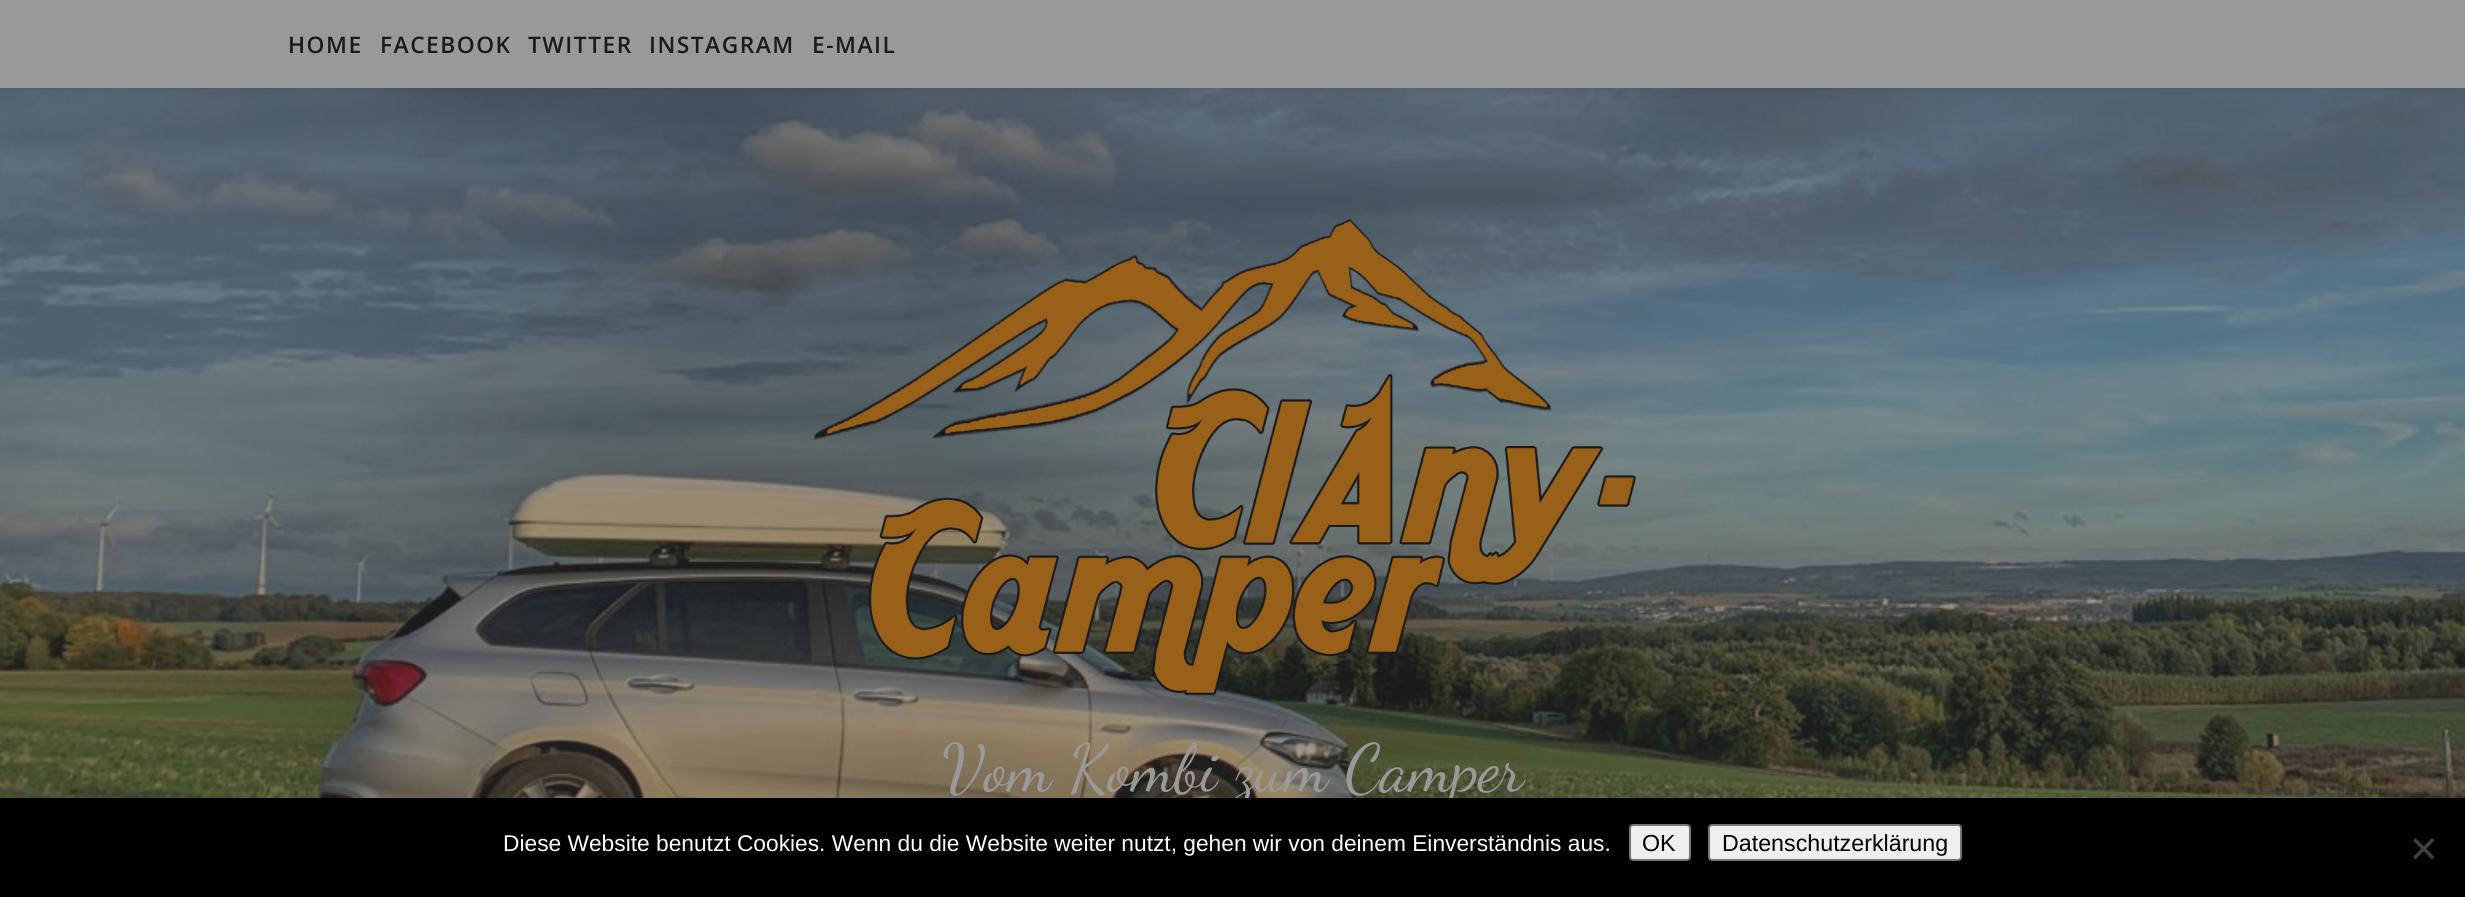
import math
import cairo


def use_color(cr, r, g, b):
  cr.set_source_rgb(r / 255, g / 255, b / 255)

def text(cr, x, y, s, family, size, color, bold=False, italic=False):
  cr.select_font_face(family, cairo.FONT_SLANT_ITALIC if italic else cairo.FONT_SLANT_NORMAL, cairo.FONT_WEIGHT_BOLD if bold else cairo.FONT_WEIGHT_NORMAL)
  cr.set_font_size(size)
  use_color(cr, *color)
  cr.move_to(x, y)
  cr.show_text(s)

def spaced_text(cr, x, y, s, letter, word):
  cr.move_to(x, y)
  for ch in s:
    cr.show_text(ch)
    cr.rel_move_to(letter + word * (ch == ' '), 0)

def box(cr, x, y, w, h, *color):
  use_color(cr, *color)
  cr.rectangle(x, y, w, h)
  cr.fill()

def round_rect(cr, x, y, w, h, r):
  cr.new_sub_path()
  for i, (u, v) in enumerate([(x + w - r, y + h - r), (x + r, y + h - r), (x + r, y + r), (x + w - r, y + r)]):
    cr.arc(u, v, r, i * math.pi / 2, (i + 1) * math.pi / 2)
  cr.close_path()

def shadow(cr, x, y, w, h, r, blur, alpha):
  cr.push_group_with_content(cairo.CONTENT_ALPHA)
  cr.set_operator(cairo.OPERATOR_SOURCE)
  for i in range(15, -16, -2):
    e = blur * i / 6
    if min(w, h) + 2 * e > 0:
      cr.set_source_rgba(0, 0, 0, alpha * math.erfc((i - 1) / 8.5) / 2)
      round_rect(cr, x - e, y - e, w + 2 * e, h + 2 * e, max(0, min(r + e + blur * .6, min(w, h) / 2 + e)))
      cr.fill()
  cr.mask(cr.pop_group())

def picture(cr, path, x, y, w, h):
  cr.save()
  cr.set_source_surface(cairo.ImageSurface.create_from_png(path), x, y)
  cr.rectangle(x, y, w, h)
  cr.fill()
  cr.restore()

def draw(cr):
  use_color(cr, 255, 255, 255)
  cr.paint()
  picture(cr, "img_02.png", 0, 88, 2465, 710)
  use_color(cr, 26, 26, 26)
  shadow(cr, 0, 2, 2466, 87, 0, 4.5, 0.1)
  box(cr, 0, 0, 2465, 88, 153, 153, 153)
  picture(cr, "img_01.png", 813, 218, 824, 478)
  cr.select_font_face("Open Sans SemiBold")
  cr.set_font_size(22.75)
  use_color(cr, 26, 26, 26)
  spaced_text(cr, 288, 53, "HOME", 1.5, 0)
  spaced_text(cr, 380, 53, "FACEBOOK", 1.5, 0)
  spaced_text(cr, 528, 53, "TWITTER", 1.5, 0)
  spaced_text(cr, 649, 53, "INSTAGRAM", 1.5, 0)
  spaced_text(cr, 812, 53, "E-MAIL", 1.5, 0)
  text(cr, 942, 790, "Vom Kombi zum Camper", "Dancing Script", 66.5, (153, 153, 153))
  box(cr, 0, 798, 2465, 99, 0, 0, 0)
  text(cr, 503, 851, "Diese Website benutzt Cookies. Wenn du die Website weiter nutzt, gehen wir von deinem Einverständnis aus.", "Liberation Sans", 22.75, (255, 255, 255))
  use_color(cr, 239, 239, 239)
  round_rect(cr, 1630, 825, 60, 35, 3)
  cr.fill_preserve()
  use_color(cr, 118, 118, 118)
  cr.stroke()
  text(cr, 1642, 851, "OK", "Liberation Sans", 23.25, (0, 0, 0))
  use_color(cr, 239, 239, 239)
  round_rect(cr, 1709, 825, 252, 35, 3)
  cr.fill_preserve()
  use_color(cr, 118, 118, 118)
  cr.stroke()
  text(cr, 1722, 851, "Datenschutzerklärung", "Liberation Sans", 23.25, (0, 0, 0))
  use_color(cr, 64, 64, 64)
  cr.new_path()
  cr.move_to(2432, 838)
  cr.line_to(2434.5, 840.5)
  cr.line_to(2415.5, 859.5)
  cr.line_to(2413, 857)
  cr.close_path()
  cr.fill()
  cr.new_path()
  cr.move_to(2413, 840.5)
  cr.line_to(2415.5, 838)
  cr.line_to(2434.5, 857)
  cr.line_to(2432, 859.5)
  cr.close_path()
  cr.fill()


surface = cairo.ImageSurface(cairo.FORMAT_RGB24, 2465, 897)
cr = cairo.Context(surface)
options = cairo.FontOptions()
options.set_hint_metrics(cairo.HINT_METRICS_OFF)
options.set_hint_style(cairo.HINT_STYLE_NONE)
cr.set_font_options(options)
cr.set_miter_limit(4)
draw(cr)
surface.write_to_png("out.png")
